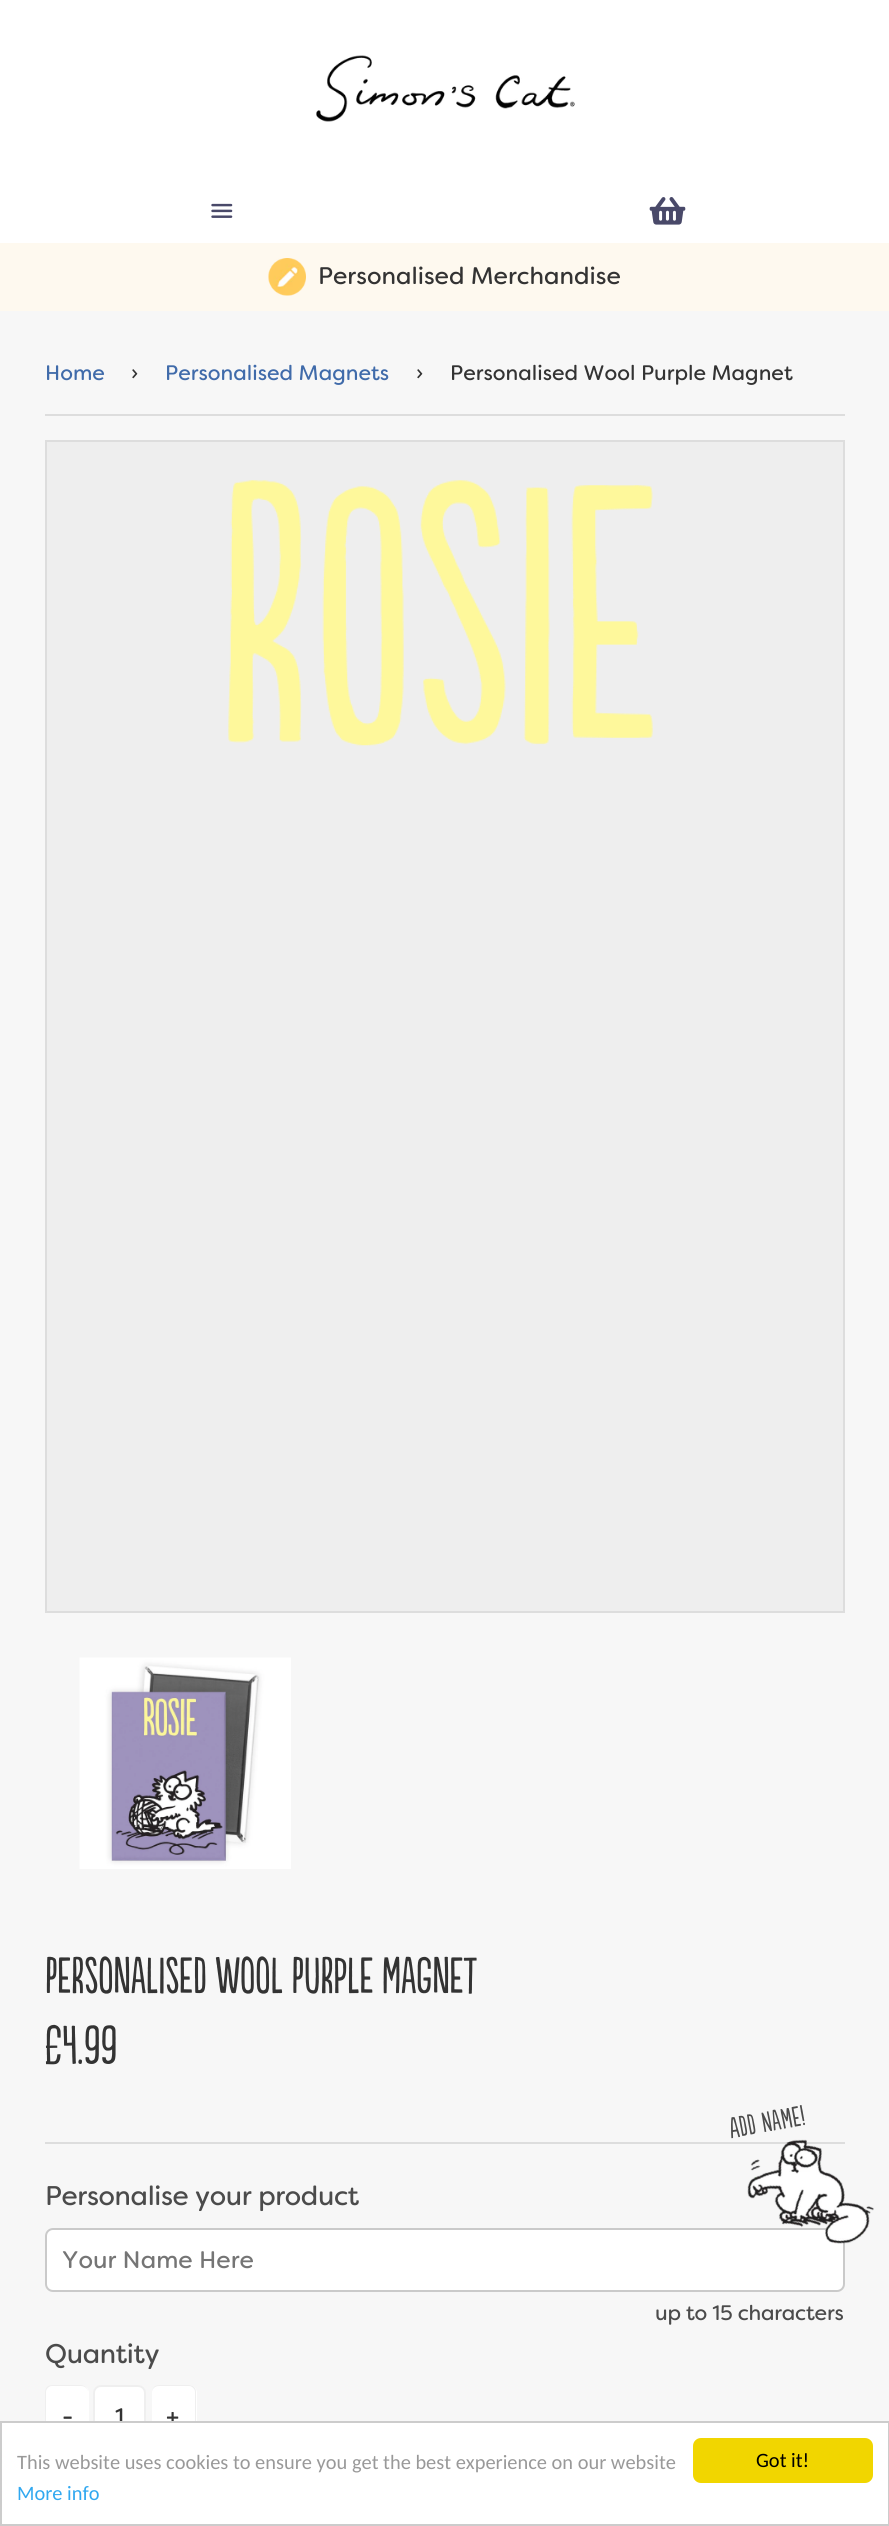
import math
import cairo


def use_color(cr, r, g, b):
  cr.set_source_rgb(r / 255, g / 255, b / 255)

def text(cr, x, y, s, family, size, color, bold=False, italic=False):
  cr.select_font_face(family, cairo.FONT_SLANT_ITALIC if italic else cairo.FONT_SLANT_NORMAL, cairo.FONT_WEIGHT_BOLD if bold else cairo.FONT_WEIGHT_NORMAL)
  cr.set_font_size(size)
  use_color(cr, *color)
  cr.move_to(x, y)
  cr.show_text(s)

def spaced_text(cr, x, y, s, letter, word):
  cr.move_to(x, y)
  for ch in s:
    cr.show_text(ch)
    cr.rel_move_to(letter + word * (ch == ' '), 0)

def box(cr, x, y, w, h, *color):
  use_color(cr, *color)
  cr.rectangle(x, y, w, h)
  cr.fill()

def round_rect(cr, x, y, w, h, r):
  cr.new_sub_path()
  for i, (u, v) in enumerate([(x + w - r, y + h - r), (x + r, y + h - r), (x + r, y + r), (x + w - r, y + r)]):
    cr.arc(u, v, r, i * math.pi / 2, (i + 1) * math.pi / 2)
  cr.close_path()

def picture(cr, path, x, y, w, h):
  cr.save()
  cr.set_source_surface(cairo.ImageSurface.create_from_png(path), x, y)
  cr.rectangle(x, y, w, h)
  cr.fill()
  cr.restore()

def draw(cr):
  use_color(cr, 247, 247, 247)
  cr.paint()
  box(cr, 0, 0, 889, 243, 255, 255, 255)
  picture(cr, "img_01.png", 316, 55, 259, 67)
  picture(cr, "img_02.png", 211, 203, 22, 15)
  picture(cr, "img_03.png", 649, 197, 37, 28)
  box(cr, 0, 243, 889, 68, 254, 249, 239)
  picture(cr, "img_04.png", 268, 258, 38, 38)
  box(cr, 45, 414, 800, 2, 221, 221, 221)
  use_color(cr, 238, 238, 238)
  cr.rectangle(46, 441, 798, 1171)
  cr.fill_preserve()
  use_color(cr, 221, 221, 221)
  cr.stroke()
  picture(cr, "img_05.png", 228, 480, 425, 266)
  picture(cr, "img_06.png", 79, 1657, 212, 212)
  box(cr, 45, 2142, 800, 2, 221, 221, 221)
  use_color(cr, 255, 255, 255)
  round_rect(cr, 46, 2229, 798, 62, 7)
  cr.fill_preserve()
  use_color(cr, 202, 202, 202)
  cr.stroke()
  picture(cr, "img_07.png", 747, 2139, 127, 105)
  use_color(cr, 255, 255, 255)
  round_rect(cr, 45, 2385, 44, 62, 8)
  cr.fill()
  use_color(cr, 239, 239, 239)
  cr.set_fill_rule(cairo.FILL_RULE_EVEN_ODD)
  cr.new_path()
  cr.move_to(52, 2385)
  cr.line_to(81, 2385)
  cr.curve_to(85, 2385, 88, 2388, 88, 2392)
  cr.line_to(88, 2439)
  cr.curve_to(88, 2443, 85, 2446, 81, 2446)
  cr.line_to(52, 2446)
  cr.curve_to(48, 2446, 45, 2443, 45, 2439)
  cr.line_to(45, 2392)
  cr.curve_to(45, 2388, 48, 2385, 52, 2385)
  cr.close_path()
  cr.move_to(52, 2386)
  cr.line_to(81, 2386)
  cr.curve_to(85, 2386, 88, 2389, 88, 2392)
  cr.line_to(88, 2439)
  cr.curve_to(88, 2442, 85, 2445, 81, 2445)
  cr.line_to(52, 2445)
  cr.curve_to(49, 2445, 46, 2442, 46, 2439)
  cr.line_to(46, 2392)
  cr.curve_to(46, 2389, 49, 2386, 52, 2386)
  cr.close_path()
  cr.fill()
  use_color(cr, 255, 255, 255)
  round_rect(cr, 94, 2386, 51, 60, 7)
  cr.fill_preserve()
  use_color(cr, 239, 239, 239)
  cr.stroke()
  use_color(cr, 255, 255, 255)
  round_rect(cr, 152, 2385, 45, 62, 8)
  cr.fill()
  use_color(cr, 239, 239, 239)
  cr.new_path()
  cr.move_to(159, 2385)
  cr.line_to(189, 2385)
  cr.curve_to(193, 2385, 196, 2388, 196, 2392)
  cr.line_to(196, 2439)
  cr.curve_to(196, 2443, 193, 2446, 189, 2446)
  cr.line_to(159, 2446)
  cr.curve_to(155, 2446, 152, 2443, 152, 2439)
  cr.line_to(152, 2392)
  cr.curve_to(152, 2388, 155, 2385, 159, 2385)
  cr.close_path()
  cr.move_to(159, 2386)
  cr.line_to(189, 2386)
  cr.curve_to(192, 2386, 195, 2389, 195, 2392)
  cr.line_to(195, 2439)
  cr.curve_to(195, 2442, 192, 2445, 189, 2445)
  cr.line_to(159, 2445)
  cr.curve_to(155, 2445, 152, 2442, 152, 2439)
  cr.line_to(152, 2392)
  cr.curve_to(152, 2389, 155, 2386, 159, 2386)
  cr.close_path()
  cr.fill()
  text(cr, 318, 284, "Personalised Merchandise", "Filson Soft", 24, (51, 51, 51))
  text(cr, 45, 380, "Home", "Filson Soft", 21, (64, 107, 170))
  text(cr, 131, 380, "›", "Filson Soft", 21, (51, 51, 51))
  text(cr, 165, 380, "Personalised Magnets", "Filson Soft", 21, (64, 107, 170))
  text(cr, 416, 380, "›", "Filson Soft", 21, (51, 51, 51))
  text(cr, 450, 380, "Personalised Wool Purple Magnet", "Filson Soft", 21, (51, 51, 51))
  cr.select_font_face("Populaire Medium")
  cr.set_font_size(48)
  spaced_text(cr, 45, 1993, "Personalised Wool Purple Magnet", 0, -1)
  text(cr, 45, 2064, "£4.99", "Populaire Medium", 51, (51, 51, 51))
  cr.set_font_size(27)
  use_color(cr, 75, 75, 75)
  cr.save()
  cr.translate(731, 2138)
  cr.rotate(-10 * math.pi / 180)
  spaced_text(cr, 0, 0, "Add Name!", 0.75, 0)
  cr.restore()
  cr.select_font_face("Filson Soft")
  spaced_text(cr, 45, 2205, "Personalise your product", -0.35, 0)
  text(cr, 62, 2268, "Your Name Here", "Filson Soft", 24, (117, 117, 117))
  cr.set_font_size(21)
  use_color(cr, 75, 75, 75)
  spaced_text(cr, 655, 2320, "up to 15 characters", -0.25, 0)
  cr.set_font_size(27)
  spaced_text(cr, 45, 2363, "Quantity", -0.35, 0)
  text(cr, 62, 2425, "-", "Filson Soft", 24, (51, 51, 51))
  text(cr, 115, 2425, "1", "Filson Soft", 24, (51, 51, 51))
  text(cr, 166, 2425, "+", "Filson Soft", 24, (51, 51, 51))
  use_color(cr, 255, 255, 255)
  cr.rectangle(1, 2422, 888, 103)
  cr.fill_preserve()
  use_color(cr, 204, 204, 204)
  cr.stroke()
  text(cr, 17, 2469, "This website uses cookies to ensure you get the best experience on our website", "Carlito", 20.4, (153, 153, 153))
  text(cr, 17, 2500, "More info", "Carlito", 20.4, (49, 168, 240))
  use_color(cr, 241, 214, 0)
  round_rect(cr, 693, 2438, 180, 45, 8)
  cr.fill()
  text(cr, 756, 2467, "Got it!", "Carlito", 20.4, (0, 0, 0))


surface = cairo.ImageSurface(cairo.FORMAT_RGB24, 889, 2526)
cr = cairo.Context(surface)
options = cairo.FontOptions()
options.set_hint_metrics(cairo.HINT_METRICS_OFF)
options.set_hint_style(cairo.HINT_STYLE_NONE)
cr.set_font_options(options)
cr.set_miter_limit(4)
draw(cr)
surface.write_to_png("out.png")
